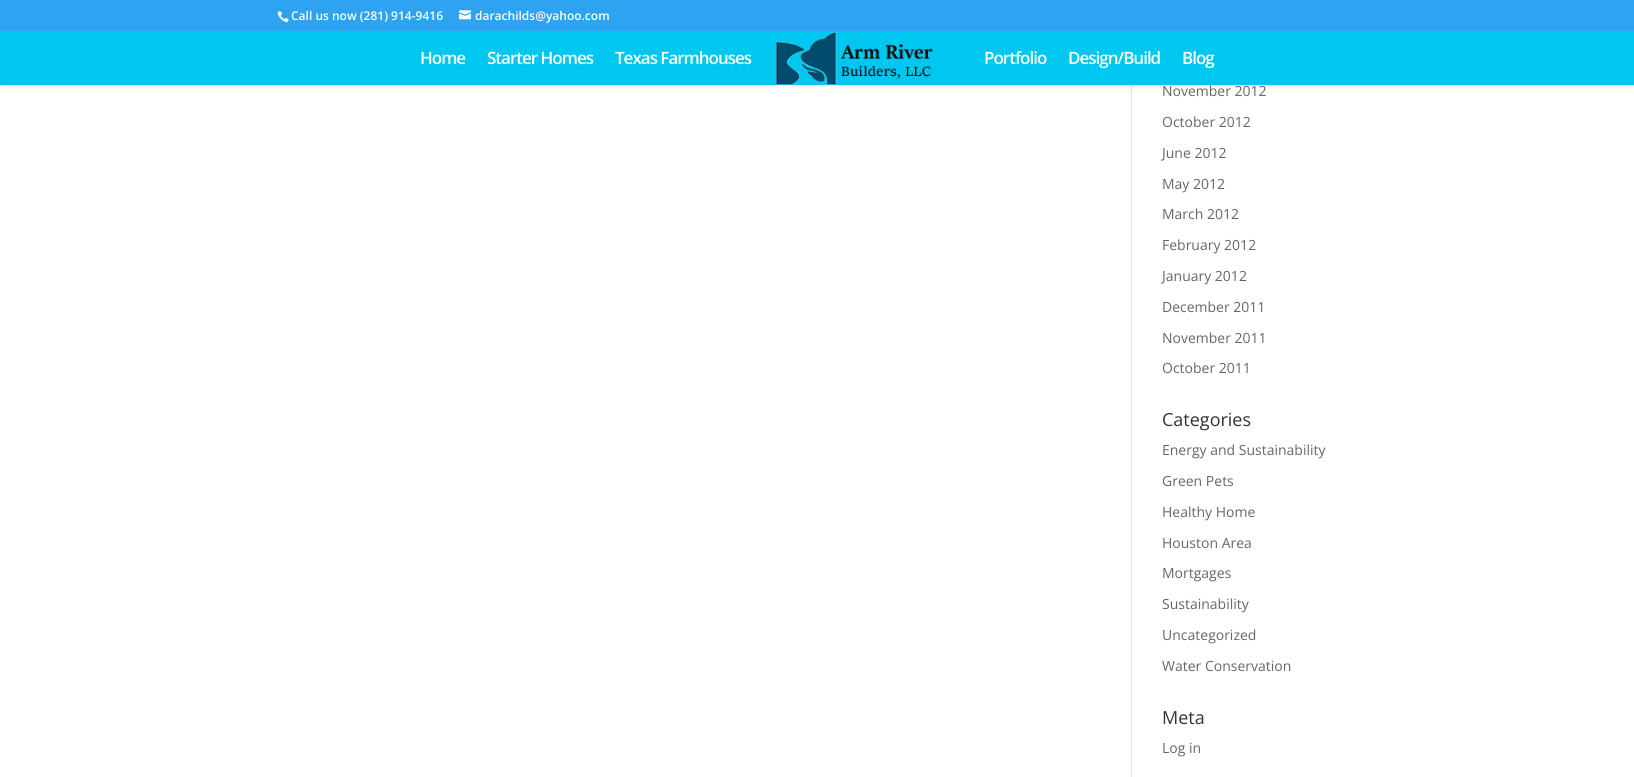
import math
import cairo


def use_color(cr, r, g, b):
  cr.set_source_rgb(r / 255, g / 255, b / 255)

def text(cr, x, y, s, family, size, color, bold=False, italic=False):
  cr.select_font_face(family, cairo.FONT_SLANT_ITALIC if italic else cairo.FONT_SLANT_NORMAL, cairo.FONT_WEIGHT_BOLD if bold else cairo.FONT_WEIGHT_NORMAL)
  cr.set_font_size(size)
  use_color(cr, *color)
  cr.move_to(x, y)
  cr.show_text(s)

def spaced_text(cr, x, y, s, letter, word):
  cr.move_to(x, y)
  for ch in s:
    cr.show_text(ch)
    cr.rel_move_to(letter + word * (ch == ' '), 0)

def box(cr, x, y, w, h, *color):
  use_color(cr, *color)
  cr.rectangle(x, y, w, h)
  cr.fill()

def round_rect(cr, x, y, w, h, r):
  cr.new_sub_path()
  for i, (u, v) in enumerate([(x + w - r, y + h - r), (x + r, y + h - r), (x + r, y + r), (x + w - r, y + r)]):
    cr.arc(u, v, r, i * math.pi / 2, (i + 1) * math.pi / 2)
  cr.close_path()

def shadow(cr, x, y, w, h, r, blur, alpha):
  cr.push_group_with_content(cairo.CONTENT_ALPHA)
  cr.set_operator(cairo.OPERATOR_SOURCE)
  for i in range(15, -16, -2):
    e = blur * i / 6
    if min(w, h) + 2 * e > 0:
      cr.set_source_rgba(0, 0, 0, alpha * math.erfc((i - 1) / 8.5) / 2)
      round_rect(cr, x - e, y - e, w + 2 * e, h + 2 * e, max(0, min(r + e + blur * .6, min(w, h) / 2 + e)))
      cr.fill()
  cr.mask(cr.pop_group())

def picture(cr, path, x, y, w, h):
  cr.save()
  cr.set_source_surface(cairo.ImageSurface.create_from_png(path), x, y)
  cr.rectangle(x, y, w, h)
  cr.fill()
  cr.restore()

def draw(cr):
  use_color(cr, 255, 255, 255)
  cr.paint()
  box(cr, 1131, 85, 1, 692, 226, 226, 226)
  use_color(cr, 0, 0, 0)
  shadow(cr, 0, 31, 1634, 54, 0, 3.5, 0.1)
  box(cr, 0, 0, 1634, 31, 46, 163, 242)
  picture(cr, "img_01.png", 277, 11, 12, 12)
  picture(cr, "img_02.png", 459, 10, 12, 10)
  box(cr, 0, 31, 1634, 54, 0, 199, 239)
  picture(cr, "img_03.png", 776, 32, 157, 53)
  text(cr, 291, 20, "Call us now (281) 914-9416", "Open Sans SemiBold", 12, (255, 255, 255))
  text(cr, 475, 20, "darachilds@yahoo.com", "Open Sans SemiBold", 12, (255, 255, 255))
  cr.set_font_size(17)
  spaced_text(cr, 420, 64, "Home", -1, 0)
  spaced_text(cr, 487, 64, "Starter Homes", -1, 0)
  spaced_text(cr, 615, 64, "Texas Farmhouses", -1, 0)
  spaced_text(cr, 984, 64, "Portfolio", -1, 0)
  spaced_text(cr, 1068, 64, "Design/Build", -1, 0)
  spaced_text(cr, 1182, 64, "Blog", -1, 0)
  text(cr, 1162, 96, "November 2012", "Open Sans", 14, (102, 102, 102))
  text(cr, 1162, 127, "October 2012", "Open Sans", 14, (102, 102, 102))
  text(cr, 1162, 158, "June 2012", "Open Sans", 14, (102, 102, 102))
  text(cr, 1162, 189, "May 2012", "Open Sans", 14, (102, 102, 102))
  text(cr, 1162, 219, "March 2012", "Open Sans", 14, (102, 102, 102))
  text(cr, 1162, 250, "February 2012", "Open Sans", 14, (102, 102, 102))
  text(cr, 1162, 281, "January 2012", "Open Sans", 14, (102, 102, 102))
  text(cr, 1162, 312, "December 2011", "Open Sans", 14, (102, 102, 102))
  text(cr, 1162, 343, "November 2011", "Open Sans", 14, (102, 102, 102))
  text(cr, 1162, 373, "October 2011", "Open Sans", 14, (102, 102, 102))
  text(cr, 1162, 426, "Categories", "Open Sans", 18, (51, 51, 51))
  text(cr, 1162, 455, "Energy and Sustainability", "Open Sans", 14, (102, 102, 102))
  text(cr, 1162, 486, "Green Pets", "Open Sans", 14, (102, 102, 102))
  text(cr, 1162, 517, "Healthy Home", "Open Sans", 14, (102, 102, 102))
  text(cr, 1162, 548, "Houston Area", "Open Sans", 14, (102, 102, 102))
  text(cr, 1162, 578, "Mortgages", "Open Sans", 14, (102, 102, 102))
  text(cr, 1162, 609, "Sustainability", "Open Sans", 14, (102, 102, 102))
  text(cr, 1162, 640, "Uncategorized", "Open Sans", 14, (102, 102, 102))
  text(cr, 1162, 671, "Water Conservation", "Open Sans", 14, (102, 102, 102))
  text(cr, 1162, 724, "Meta", "Open Sans", 18, (51, 51, 51))
  text(cr, 1162, 753, "Log in", "Open Sans", 14, (102, 102, 102))


surface = cairo.ImageSurface(cairo.FORMAT_RGB24, 1634, 777)
cr = cairo.Context(surface)
options = cairo.FontOptions()
options.set_hint_metrics(cairo.HINT_METRICS_OFF)
options.set_hint_style(cairo.HINT_STYLE_NONE)
cr.set_font_options(options)
cr.set_miter_limit(4)
draw(cr)
surface.write_to_png("out.png")
